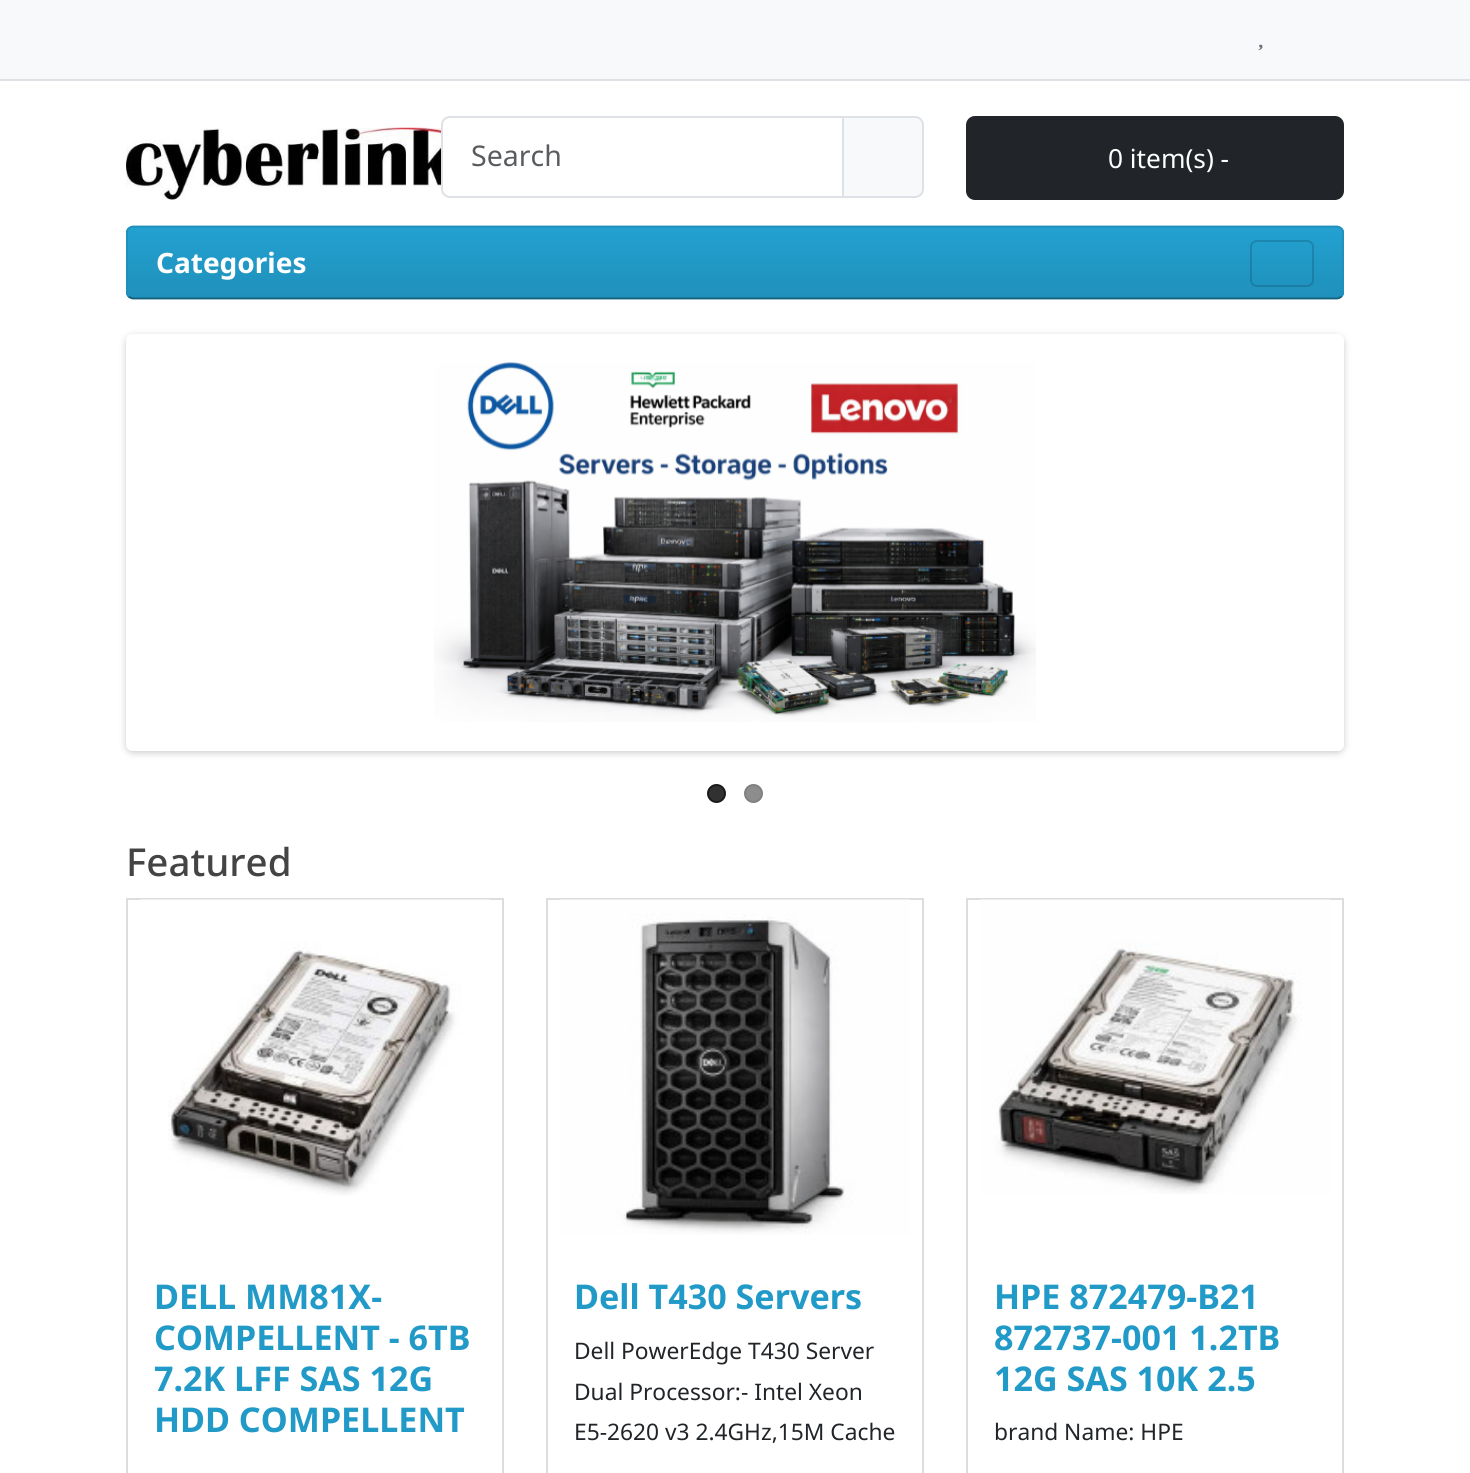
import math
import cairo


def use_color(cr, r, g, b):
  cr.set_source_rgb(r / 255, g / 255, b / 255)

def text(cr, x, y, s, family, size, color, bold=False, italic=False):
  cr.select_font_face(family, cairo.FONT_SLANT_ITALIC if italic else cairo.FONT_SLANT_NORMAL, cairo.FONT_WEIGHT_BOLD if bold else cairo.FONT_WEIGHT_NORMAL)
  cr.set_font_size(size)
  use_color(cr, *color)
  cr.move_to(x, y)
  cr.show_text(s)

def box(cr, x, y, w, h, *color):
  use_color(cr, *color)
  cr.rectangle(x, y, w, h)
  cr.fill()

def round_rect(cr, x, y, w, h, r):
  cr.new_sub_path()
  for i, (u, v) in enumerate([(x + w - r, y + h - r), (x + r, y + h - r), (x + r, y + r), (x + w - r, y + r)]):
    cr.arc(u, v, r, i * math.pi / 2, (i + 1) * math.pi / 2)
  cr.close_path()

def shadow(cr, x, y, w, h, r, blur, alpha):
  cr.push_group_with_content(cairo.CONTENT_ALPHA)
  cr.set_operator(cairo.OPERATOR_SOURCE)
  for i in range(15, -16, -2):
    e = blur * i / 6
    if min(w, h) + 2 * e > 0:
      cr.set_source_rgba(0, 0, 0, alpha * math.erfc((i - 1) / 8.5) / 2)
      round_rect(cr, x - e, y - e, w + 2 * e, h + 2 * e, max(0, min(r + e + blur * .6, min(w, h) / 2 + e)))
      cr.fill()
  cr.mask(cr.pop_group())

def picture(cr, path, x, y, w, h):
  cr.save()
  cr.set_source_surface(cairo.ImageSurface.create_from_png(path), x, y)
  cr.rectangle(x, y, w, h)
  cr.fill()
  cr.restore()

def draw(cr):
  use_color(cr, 255, 255, 255)
  cr.paint()
  box(cr, 0, 0, 1470, 79, 248, 249, 250)
  box(cr, 0, 79, 1470, 2, 222, 226, 230)
  picture(cr, "img_01.png", 1258, 44, 5, 7)
  picture(cr, "img_02.png", 126, 127, 350, 73)
  use_color(cr, 255, 255, 255)
  cr.new_path()
  cr.move_to(450, 117)
  cr.line_to(843, 117)
  cr.line_to(843, 197)
  cr.line_to(450, 197)
  cr.curve_to(445.5, 197, 442, 193.5, 442, 189)
  cr.line_to(442, 125)
  cr.curve_to(442, 120.5, 445.5, 117, 450, 117)
  cr.close_path()
  cr.fill_preserve()
  use_color(cr, 222, 226, 230)
  cr.stroke()
  use_color(cr, 248, 249, 250)
  cr.new_path()
  cr.move_to(843, 117)
  cr.line_to(915, 117)
  cr.curve_to(919.5, 117, 923, 120.5, 923, 125)
  cr.line_to(923, 189)
  cr.curve_to(923, 193.5, 919.5, 197, 915, 197)
  cr.line_to(843, 197)
  cr.close_path()
  cr.fill_preserve()
  use_color(cr, 222, 226, 230)
  cr.stroke()
  use_color(cr, 33, 37, 41)
  round_rect(cr, 967, 117, 376, 82, 8)
  cr.fill_preserve()
  cr.stroke()
  use_color(cr, 34, 154, 200)
  round_rect(cr, 126, 226, 1218, 73, 7)
  cr.fill()
  cr.save()
  round_rect(cr, 126, 226, 1218, 73, 7)
  cr.clip()
  gradient = cairo.LinearGradient(735, 227, 735, 298)
  gradient.add_color_stop_rgba(0, 0.137, 0.631, 0.82, 1)
  gradient.add_color_stop_rgba(1, 0.122, 0.565, 0.733, 1)
  cr.set_source(gradient)
  cr.rectangle(126, 228, 1218, 70)
  cr.fill()
  cr.restore()
  cr.new_path()
  cr.move_to(1341.5, 296.5)
  cr.curve_to(1340, 297.5, 1338.5, 298.5, 1337, 298.5)
  cr.line_to(133, 298.5)
  cr.curve_to(131.5, 298.5, 130, 297.5, 128.5, 296.5)
  use_color(cr, 20, 94, 122)
  cr.set_line_width(1.8)
  cr.stroke()
  cr.new_path()
  cr.move_to(128.5, 296.5)
  cr.curve_to(127.5, 295.5, 127, 294, 127, 292)
  cr.line_to(127, 233)
  cr.curve_to(127, 231, 127.5, 229.5, 128.5, 228.5)
  cr.curve_to(130, 227.5, 131.5, 226.5, 133, 226.5)
  cr.line_to(1337, 226.5)
  cr.curve_to(1338.5, 226.5, 1340, 227.5, 1341.5, 228.5)
  cr.curve_to(1342.5, 229.5, 1343, 231, 1343, 233)
  cr.line_to(1343, 292)
  cr.curve_to(1343, 294, 1342.5, 295.5, 1341.5, 296.5)
  use_color(cr, 31, 144, 187)
  cr.stroke()
  round_rect(cr, 1251, 241, 62, 45, 6)
  cr.set_source_rgba(0, 0, 0, 0.15)
  cr.set_line_width(2)
  cr.stroke()
  cr.save()
  cr.set_fill_rule(cairo.FILL_RULE_EVEN_ODD)
  cr.new_path()
  cr.move_to(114, 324)
  cr.line_to(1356, 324)
  cr.line_to(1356, 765)
  cr.line_to(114, 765)
  cr.close_path()
  cr.move_to(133, 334)
  cr.line_to(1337, 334)
  cr.curve_to(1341, 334, 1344, 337, 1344, 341)
  cr.line_to(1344, 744)
  cr.curve_to(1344, 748, 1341, 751, 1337, 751)
  cr.line_to(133, 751)
  cr.curve_to(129, 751, 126, 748, 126, 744)
  cr.line_to(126, 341)
  cr.curve_to(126, 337, 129, 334, 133, 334)
  cr.close_path()
  cr.clip()
  use_color(cr, 0, 0, 0)
  shadow(cr, 126, 336, 1218, 417, 7, 3.5, 0.2)
  cr.restore()
  round_rect(cr, 129.5, 337.5, 1211, 410, 3.5)
  use_color(cr, 255, 255, 255)
  cr.set_line_width(7)
  cr.stroke()
  picture(cr, "img_03.png", 434, 362, 602, 360)
  use_color(cr, 49, 49, 49)
  cr.arc(716.5, 793.5, 8.5, 0, 2 * math.pi)
  cr.fill_preserve()
  use_color(cr, 26, 26, 26)
  cr.set_line_width(2)
  cr.stroke()
  use_color(cr, 141, 141, 141)
  cr.arc(753.5, 793.5, 8.5, 0, 2 * math.pi)
  cr.fill_preserve()
  use_color(cr, 128, 128, 128)
  cr.stroke()
  cr.rectangle(127, 899, 376, 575)
  use_color(cr, 221, 221, 221)
  cr.stroke()
  picture(cr, "img_04.png", 140, 899, 350, 297)
  cr.rectangle(547, 899, 376, 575)
  cr.stroke()
  picture(cr, "img_05.png", 560, 899, 350, 336)
  cr.rectangle(967, 899, 376, 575)
  cr.stroke()
  picture(cr, "img_06.png", 980, 899, 350, 295)
  text(cr, 471, 166, "Search", "Noto Sans", 28.5, (89, 92, 95))
  text(cr, 1108, 168, "0 item(s) -", "Noto Sans", 26.25, (255, 255, 255))
  text(cr, 156, 273, "Categories", "Noto Sans", 28, (255, 255, 255), bold=True)
  text(cr, 126, 876, "Featured", "Noto Sans Medium", 38.5, (68, 68, 68))
  text(cr, 154, 1309, "DELL MM81X-", "Noto Sans", 34.1, (34, 154, 200), bold=True)
  text(cr, 154, 1350, "COMPELLENT - 6TB", "Noto Sans", 34.1, (34, 154, 200), bold=True)
  text(cr, 154, 1391, "7.2K LFF SAS 12G", "Noto Sans", 34.1, (34, 154, 200), bold=True)
  text(cr, 154, 1432, "HDD COMPELLENT", "Noto Sans", 34.1, (34, 154, 200), bold=True)
  text(cr, 574, 1309, "Dell T430 Servers", "Noto Sans", 34.1, (34, 154, 200), bold=True)
  text(cr, 574, 1359, "Dell PowerEdge T430 Server", "Noto Sans", 22.75, (33, 37, 41))
  text(cr, 574, 1400, "Dual Processor:- Intel Xeon", "Noto Sans", 22.75, (33, 37, 41))
  text(cr, 574, 1440, "E5-2620 v3 2.4GHz,15M Cache", "Noto Sans", 22.75, (33, 37, 41))
  text(cr, 994, 1309, "HPE 872479-B21", "Noto Sans", 34.1, (34, 154, 200), bold=True)
  text(cr, 994, 1350, "872737-001 1.2TB", "Noto Sans", 34.1, (34, 154, 200), bold=True)
  text(cr, 994, 1391, "12G SAS 10K 2.5", "Noto Sans", 34.1, (34, 154, 200), bold=True)
  text(cr, 994, 1440, "brand Name: HPE", "Noto Sans", 22.75, (33, 37, 41))


surface = cairo.ImageSurface(cairo.FORMAT_RGB24, 1470, 1473)
cr = cairo.Context(surface)
options = cairo.FontOptions()
options.set_hint_metrics(cairo.HINT_METRICS_OFF)
options.set_hint_style(cairo.HINT_STYLE_NONE)
cr.set_font_options(options)
cr.set_miter_limit(4)
draw(cr)
surface.write_to_png("out.png")
